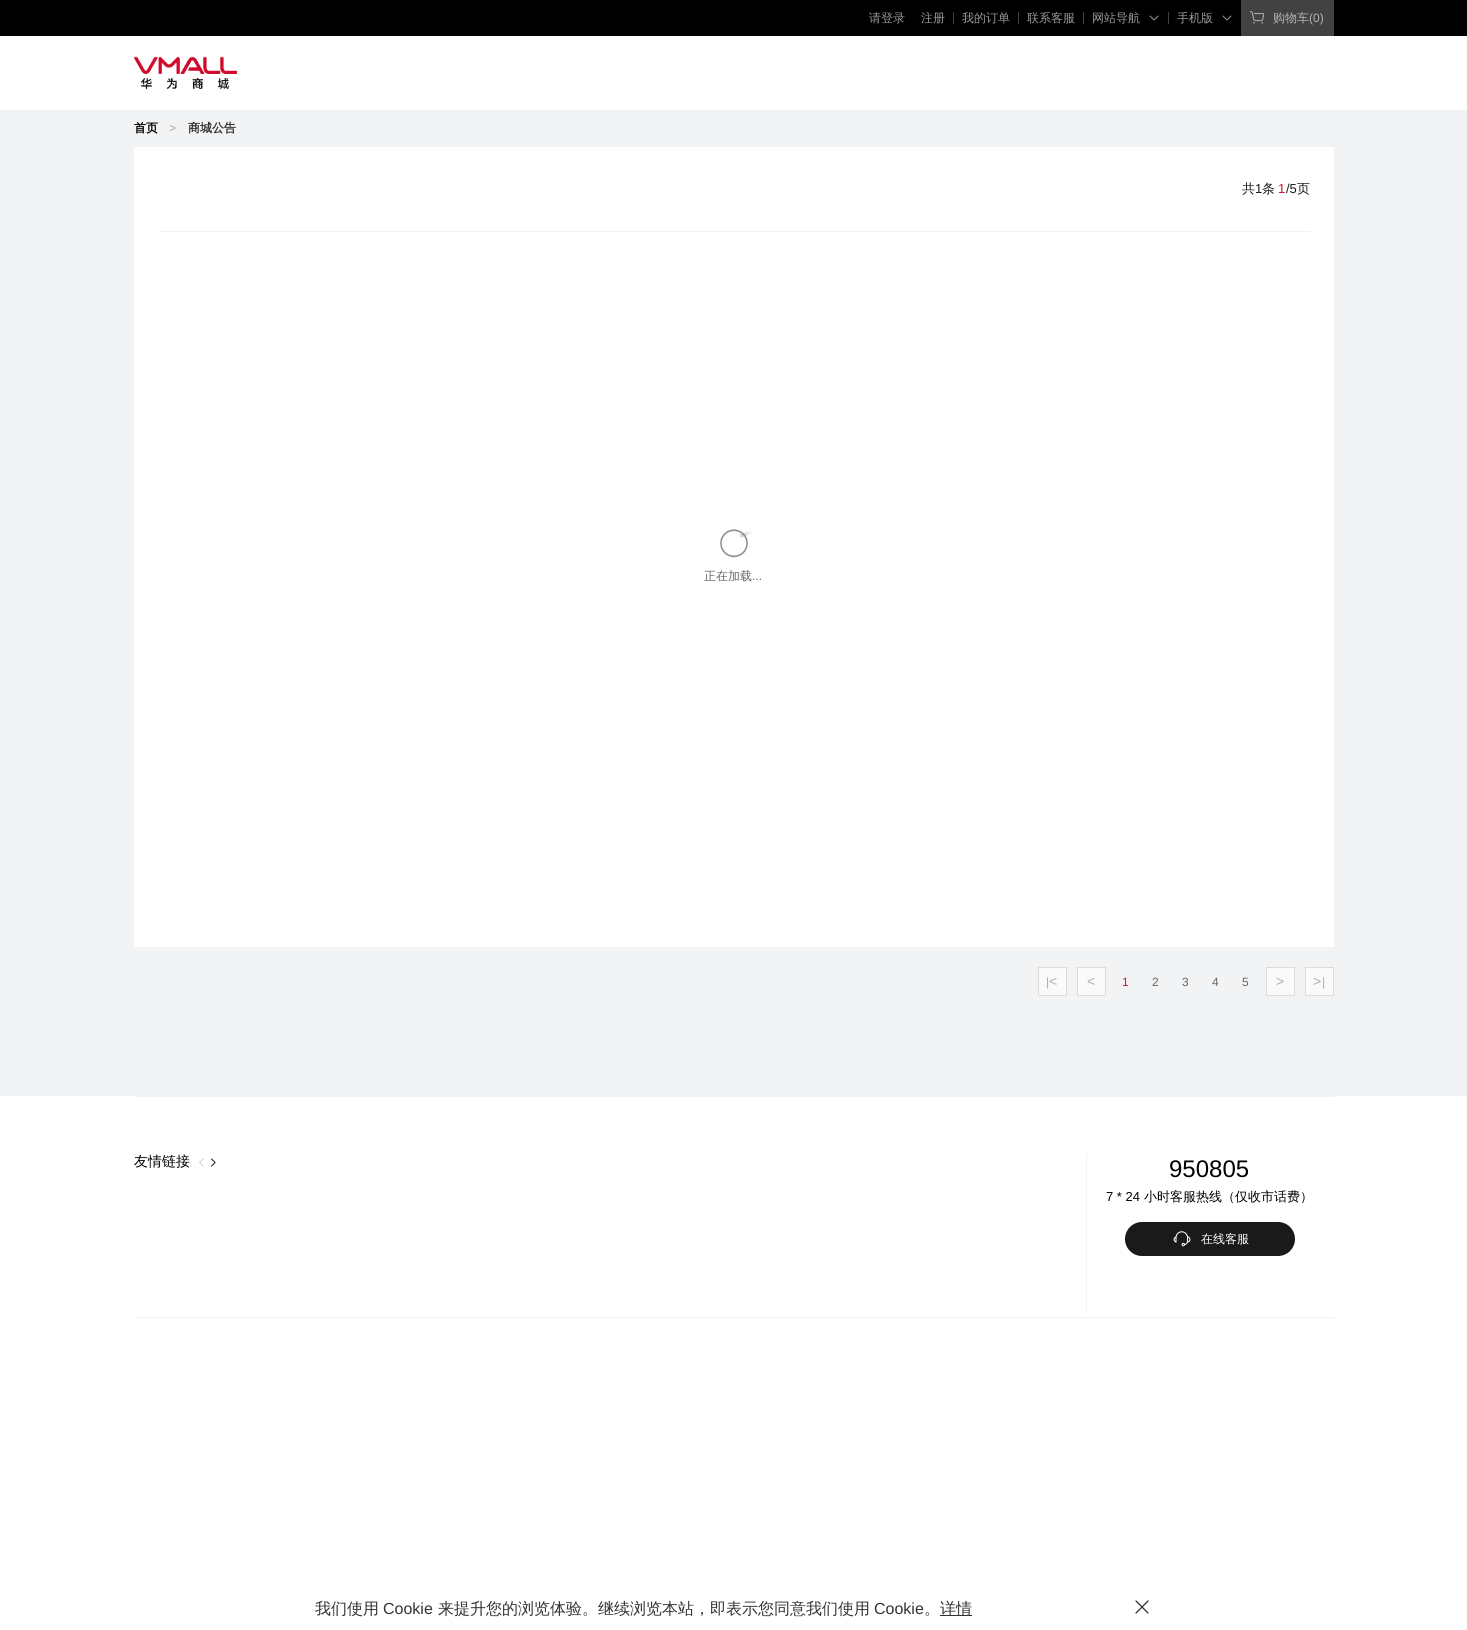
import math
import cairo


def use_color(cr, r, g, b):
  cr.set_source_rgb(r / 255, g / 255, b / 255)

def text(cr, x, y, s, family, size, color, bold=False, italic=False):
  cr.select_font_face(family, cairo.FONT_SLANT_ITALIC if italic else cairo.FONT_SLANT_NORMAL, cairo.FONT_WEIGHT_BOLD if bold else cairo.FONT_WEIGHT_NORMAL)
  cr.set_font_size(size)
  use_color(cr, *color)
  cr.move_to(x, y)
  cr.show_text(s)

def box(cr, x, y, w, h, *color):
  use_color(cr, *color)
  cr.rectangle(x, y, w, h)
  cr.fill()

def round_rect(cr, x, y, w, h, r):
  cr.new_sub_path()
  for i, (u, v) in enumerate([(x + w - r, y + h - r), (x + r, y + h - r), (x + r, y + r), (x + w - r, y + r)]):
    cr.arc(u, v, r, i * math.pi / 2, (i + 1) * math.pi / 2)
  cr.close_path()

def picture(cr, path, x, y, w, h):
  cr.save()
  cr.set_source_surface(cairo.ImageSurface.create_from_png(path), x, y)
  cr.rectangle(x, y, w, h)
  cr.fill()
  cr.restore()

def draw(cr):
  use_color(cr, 255, 255, 255)
  cr.paint()
  box(cr, 0, 110, 1467, 986, 241, 243, 245)
  box(cr, 0, 0, 1467, 36, 0, 0, 0)
  box(cr, 953, 12, 1, 12, 65, 65, 65)
  box(cr, 1018, 12, 1, 12, 65, 65, 65)
  box(cr, 1083, 12, 1, 12, 65, 65, 65)
  picture(cr, "img_01.png", 1149, 15, 10, 6)
  box(cr, 1168, 12, 1, 12, 65, 65, 65)
  picture(cr, "img_01.png", 1222, 15, 10, 6)
  box(cr, 1241, 0, 93, 36, 66, 66, 66)
  picture(cr, "img_02.png", 1249, 11, 16, 13)
  picture(cr, "img_03.png", 134, 56, 103, 34)
  box(cr, 134, 147, 1200, 800, 255, 255, 255)
  box(cr, 158, 231, 1152, 1, 242, 242, 242)
  picture(cr, "img_04.png", 720, 529, 32, 29)
  use_color(cr, 250, 250, 250)
  cr.rectangle(1038.5, 967.5, 28, 28)
  cr.fill_preserve()
  use_color(cr, 221, 220, 219)
  cr.set_line_width(1)
  cr.stroke()
  use_color(cr, 250, 250, 250)
  cr.rectangle(1077.5, 967.5, 28, 28)
  cr.fill_preserve()
  use_color(cr, 221, 220, 219)
  cr.stroke()
  use_color(cr, 250, 250, 250)
  cr.rectangle(1266.5, 967.5, 28, 28)
  cr.fill_preserve()
  use_color(cr, 221, 220, 219)
  cr.stroke()
  use_color(cr, 250, 250, 250)
  cr.rectangle(1305.5, 967.5, 28, 28)
  cr.fill_preserve()
  use_color(cr, 221, 220, 219)
  cr.stroke()
  box(cr, 134, 1096, 1200, 1, 242, 242, 242)
  box(cr, 134, 1317, 1200, 1, 242, 242, 242)
  picture(cr, "img_05.png", 199, 1158, 5, 9)
  picture(cr, "img_06.png", 211, 1158, 5, 9)
  box(cr, 1086, 1153, 1, 160, 242, 242, 242)
  use_color(cr, 26, 26, 26)
  round_rect(cr, 1125, 1222, 170, 34, 17)
  cr.fill()
  picture(cr, "img_07.png", 1173, 1231, 18, 16)
  box(cr, 940, 1615, 32, 1, 49, 49, 49)
  picture(cr, "img_08.png", 1135, 1600, 14, 14)
  text(cr, 869, 22, "请登录", "WenQuanYi Zen Hei Medium", 12, (153, 153, 153))
  text(cr, 921, 22, "注册", "WenQuanYi Zen Hei Medium", 12, (153, 153, 153))
  text(cr, 962, 22, "我的订单", "WenQuanYi Zen Hei Medium", 12, (153, 153, 153))
  text(cr, 1027, 22, "联系客服", "WenQuanYi Zen Hei Medium", 12, (153, 153, 153))
  text(cr, 1092, 22, "网站导航", "WenQuanYi Zen Hei Medium", 12, (153, 153, 153))
  text(cr, 1177, 22, "手机版", "WenQuanYi Zen Hei Medium", 12, (153, 153, 153))
  text(cr, 1273, 22, "购物车", "WenQuanYi Zen Hei Medium", 12, (179, 179, 179))
  text(cr, 1309, 22, "(0)", "Liberation Sans", 12, (179, 179, 179))
  text(cr, 134, 132, "首页", "WenQuanYi Zen Hei", 12, (0, 0, 0), bold=True)
  text(cr, 169, 132, ">", "Liberation Sans", 12, (187, 187, 187), bold=True)
  text(cr, 188, 132, "商城公告", "WenQuanYi Zen Hei", 12, (51, 51, 51), bold=True)
  text(cr, 1242, 193, "共", "WenQuanYi Zen Hei Medium", 13, (25, 25, 25))
  text(cr, 1255, 193, "1", "Liberation Sans", 13, (25, 25, 25))
  text(cr, 1262, 193, "条", "WenQuanYi Zen Hei Medium", 13, (25, 25, 25))
  text(cr, 1278, 193, "1", "Liberation Sans", 13, (207, 10, 44))
  text(cr, 1286, 193, "/5", "Liberation Sans", 13, (25, 25, 25))
  text(cr, 1297, 193, "页", "WenQuanYi Zen Hei Medium", 13, (25, 25, 25))
  text(cr, 704, 580, "正在加载", "WenQuanYi Zen Hei Medium", 12, (102, 102, 102))
  text(cr, 752, 580, "...", "Liberation Sans", 12, (102, 102, 102))
  text(cr, 1046, 986, "|", "Liberation Sans", 12, (173, 173, 173))
  text(cr, 1049, 986, "<", "Liberation Sans", 14, (173, 173, 173))
  text(cr, 1087, 986, "<", "Liberation Sans", 14, (173, 173, 173))
  text(cr, 1122, 986, "1", "Liberation Sans", 12, (202, 21, 30))
  text(cr, 1152, 986, "2", "Liberation Sans", 12, (102, 102, 102))
  text(cr, 1182, 986, "3", "Liberation Sans", 12, (102, 102, 102))
  text(cr, 1212, 986, "4", "Liberation Sans", 12, (102, 102, 102))
  text(cr, 1242, 986, "5", "Liberation Sans", 12, (102, 102, 102))
  text(cr, 1276, 986, ">", "Liberation Sans", 14, (173, 173, 173))
  text(cr, 1313, 986, ">", "Liberation Sans", 14, (173, 173, 173))
  text(cr, 1322, 986, "|", "Liberation Sans", 12, (173, 173, 173))
  text(cr, 134, 1166, "友情链接", "WenQuanYi Zen Hei Medium", 14, (0, 0, 0))
  text(cr, 1169, 1177, "950805", "Liberation Sans", 24, (0, 0, 0))
  text(cr, 1106, 1201, "7 * 24", "Liberation Sans", 13, (0, 0, 0))
  text(cr, 1144, 1201, "小时客服热线（仅收市话费）", "WenQuanYi Zen Hei Medium", 13, (0, 0, 0))
  text(cr, 1201, 1243, "在线客服", "WenQuanYi Zen Hei Medium", 12, (255, 255, 255))
  text(cr, 315, 1614, "我们使用", "WenQuanYi Zen Hei Medium", 16, (51, 51, 51))
  text(cr, 383, 1614, "Cookie", "Liberation Sans", 16, (51, 51, 51))
  text(cr, 438, 1614, "来提升您的浏览体验。继续浏览本站，即表示您同意我们使用", "WenQuanYi Zen Hei Medium", 16, (51, 51, 51))
  text(cr, 874, 1614, "Cookie", "Liberation Sans", 16, (51, 51, 51))
  text(cr, 924, 1614, "。", "WenQuanYi Zen Hei Medium", 16, (51, 51, 51))
  text(cr, 940, 1614, "详情", "WenQuanYi Zen Hei Medium", 16, (51, 51, 51))


surface = cairo.ImageSurface(cairo.FORMAT_RGB24, 1467, 1630)
cr = cairo.Context(surface)
options = cairo.FontOptions()
options.set_hint_metrics(cairo.HINT_METRICS_OFF)
options.set_hint_style(cairo.HINT_STYLE_NONE)
cr.set_font_options(options)
cr.set_miter_limit(4)
draw(cr)
surface.write_to_png("out.png")
